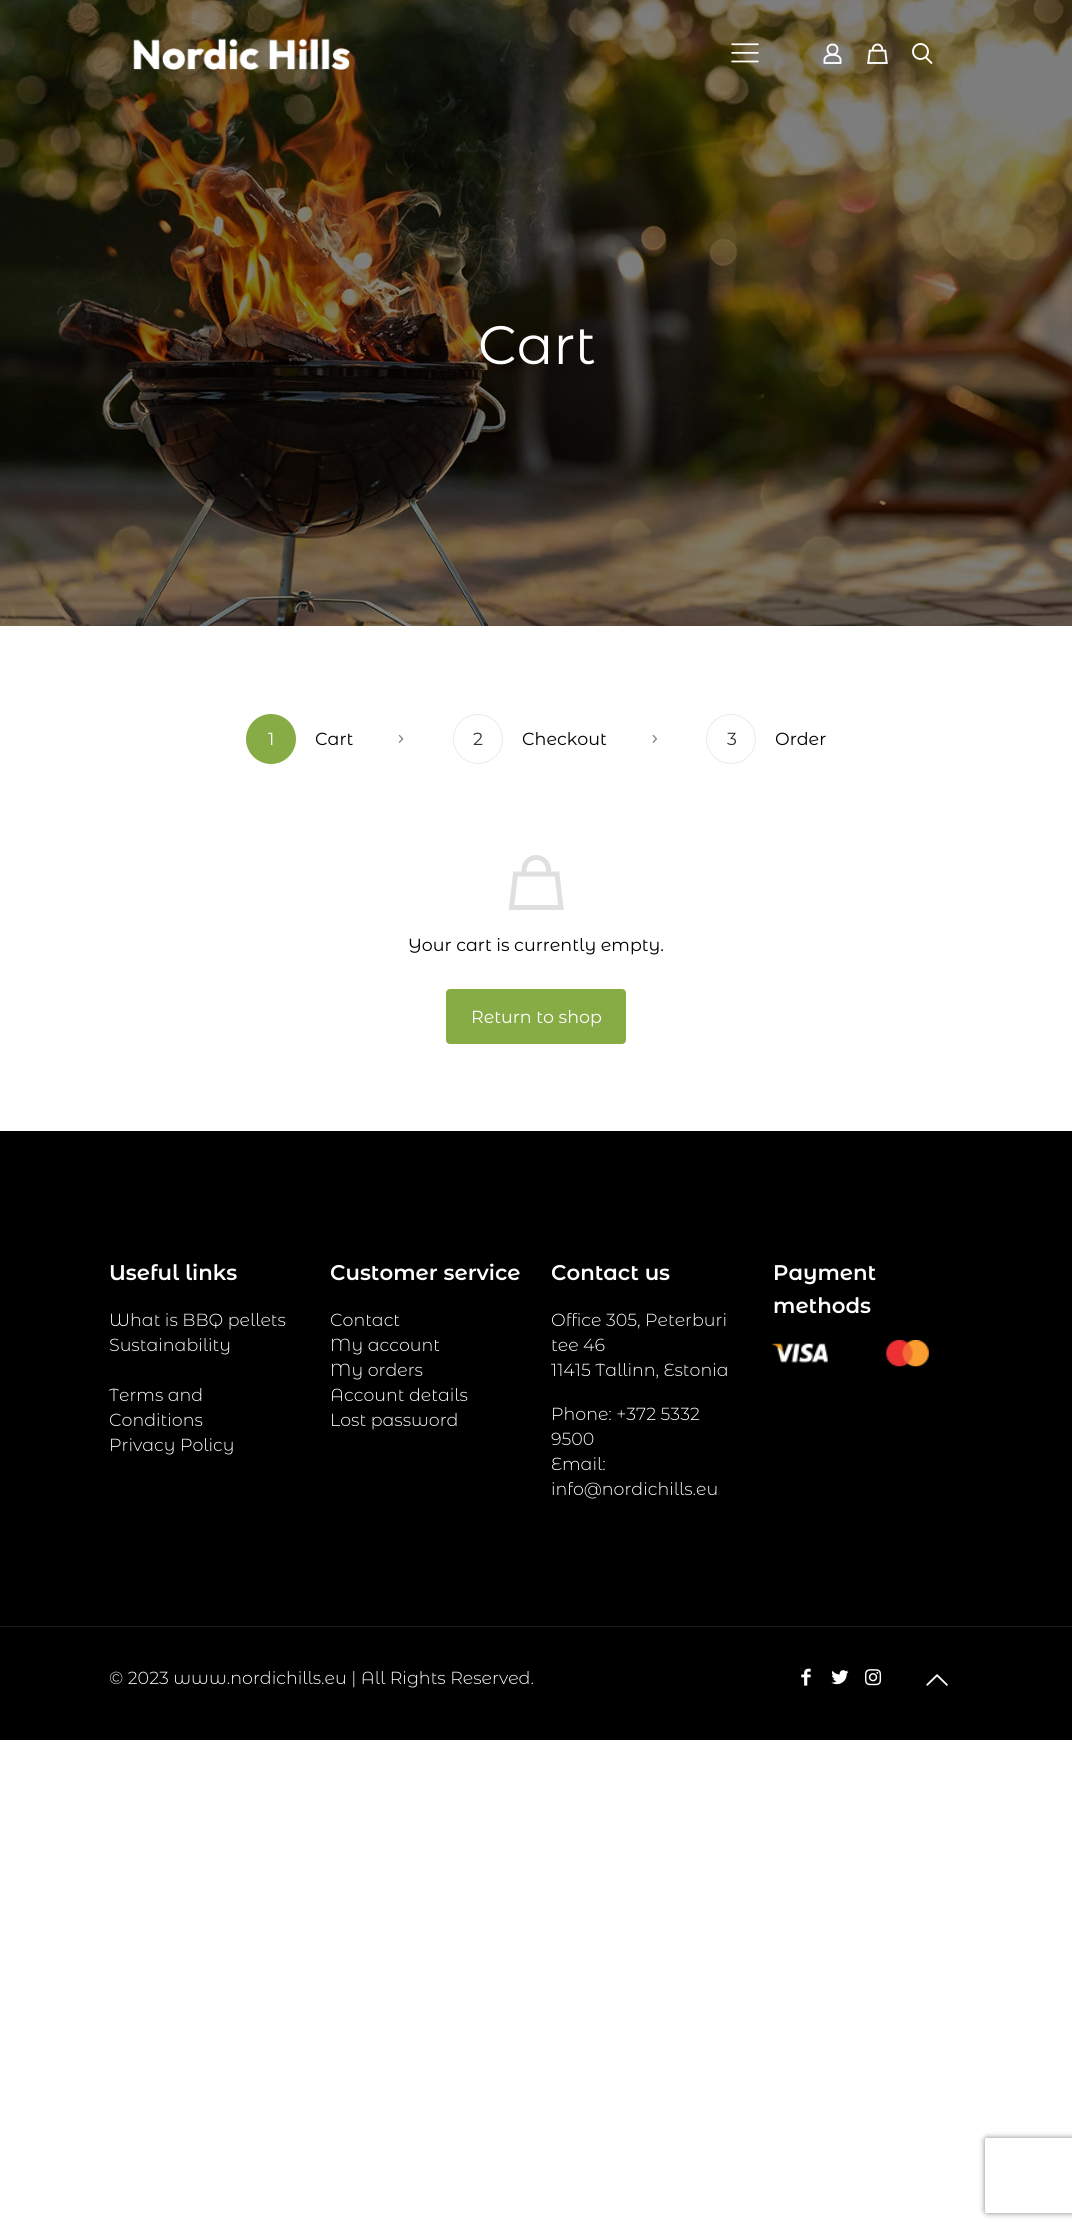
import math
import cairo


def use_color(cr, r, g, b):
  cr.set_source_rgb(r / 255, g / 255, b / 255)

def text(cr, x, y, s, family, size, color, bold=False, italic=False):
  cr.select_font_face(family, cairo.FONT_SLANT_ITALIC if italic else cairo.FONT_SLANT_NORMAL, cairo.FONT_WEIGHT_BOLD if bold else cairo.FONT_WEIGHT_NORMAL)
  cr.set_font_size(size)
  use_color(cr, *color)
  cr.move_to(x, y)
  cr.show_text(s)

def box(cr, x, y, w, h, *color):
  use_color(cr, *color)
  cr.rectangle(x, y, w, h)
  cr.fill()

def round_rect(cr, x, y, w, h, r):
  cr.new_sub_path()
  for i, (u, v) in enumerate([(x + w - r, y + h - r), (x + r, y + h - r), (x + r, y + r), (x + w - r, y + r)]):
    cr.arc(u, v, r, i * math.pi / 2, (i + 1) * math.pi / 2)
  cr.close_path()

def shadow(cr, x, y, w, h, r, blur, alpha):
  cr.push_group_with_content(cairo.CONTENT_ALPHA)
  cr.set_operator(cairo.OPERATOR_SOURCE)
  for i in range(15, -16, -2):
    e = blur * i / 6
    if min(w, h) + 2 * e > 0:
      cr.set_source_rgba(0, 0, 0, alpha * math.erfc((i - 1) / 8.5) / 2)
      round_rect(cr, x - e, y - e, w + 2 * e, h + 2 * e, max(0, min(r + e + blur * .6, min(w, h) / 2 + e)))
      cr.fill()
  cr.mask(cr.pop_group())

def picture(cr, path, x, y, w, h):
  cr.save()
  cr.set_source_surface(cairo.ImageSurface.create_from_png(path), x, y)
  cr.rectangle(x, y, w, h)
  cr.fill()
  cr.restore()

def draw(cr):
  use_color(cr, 255, 255, 255)
  cr.paint()
  picture(cr, "img_04.png", 0, 0, 1072, 626)
  picture(cr, "img_01.png", 133, 38, 217, 32)
  picture(cr, "img_02.png", 731, 43, 28, 20)
  cr.arc(832.5, 49.5, 5, 0, 2 * math.pi)
  use_color(cr, 255, 255, 255)
  cr.set_line_width(1.9)
  cr.stroke()
  cr.new_path()
  cr.move_to(840.5, 60)
  cr.line_to(840.5, 63)
  cr.line_to(824.5, 63)
  cr.line_to(824.5, 59)
  cr.curve_to(826.5, 53, 840.5, 53.5, 840.5, 60)
  cr.close_path()
  cr.stroke()
  picture(cr, "img_03.png", 867, 43, 21, 21)
  cr.arc(920.5, 51.5, 7.5, 0, 2 * math.pi)
  cr.stroke()
  cr.new_path()
  cr.move_to(925.5, 57)
  cr.line_to(932, 63.5)
  cr.stroke()
  use_color(cr, 135, 171, 69)
  cr.arc(271, 739, 25, 0, 2 * math.pi)
  cr.fill()
  picture(cr, "img_05.png", 398, 734, 6, 9)
  cr.arc(478, 739, 24.5, 0, 2 * math.pi)
  use_color(cr, 235, 235, 235)
  cr.set_line_width(1)
  cr.stroke()
  picture(cr, "img_06.png", 652, 734, 5, 9)
  cr.arc(731, 739, 24.5, 0, 2 * math.pi)
  cr.stroke()
  cr.new_path()
  cr.move_to(561, 907.5)
  cr.line_to(511.5, 907.5)
  cr.line_to(515.5, 874)
  cr.line_to(557, 874)
  cr.close_path()
  cr.move_to(524, 874)
  cr.line_to(524, 870)
  cr.curve_to(524, 863, 529.5, 857.5, 536, 857.5)
  cr.curve_to(543, 857.5, 548.5, 863, 548.5, 870)
  cr.line_to(548.5, 874)
  use_color(cr, 224, 224, 224)
  cr.set_line_width(5)
  cr.stroke()
  use_color(cr, 135, 171, 69)
  round_rect(cr, 446, 989, 180, 55, 4)
  cr.fill()
  box(cr, 0, 1131, 1072, 609, 0, 0, 0)
  picture(cr, "img_07.png", 772, 1340, 157, 27)
  box(cr, 0, 1626, 1072, 1, 26, 26, 26)
  picture(cr, "img_08.png", 801, 1668, 10, 18)
  picture(cr, "img_09.png", 831, 1670, 18, 15)
  picture(cr, "img_10.png", 865, 1669, 17, 17)
  picture(cr, "img_11.png", 926, 1674, 22, 12)
  cr.save()
  cr.set_fill_rule(cairo.FILL_RULE_EVEN_ODD)
  cr.new_path()
  cr.move_to(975, 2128)
  cr.line_to(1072, 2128)
  cr.line_to(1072, 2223)
  cr.line_to(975, 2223)
  cr.close_path()
  cr.move_to(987.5, 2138)
  cr.line_to(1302.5, 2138)
  cr.curve_to(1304, 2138, 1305, 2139, 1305, 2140.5)
  cr.line_to(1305, 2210.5)
  cr.curve_to(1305, 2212, 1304, 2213, 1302.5, 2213)
  cr.line_to(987.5, 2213)
  cr.curve_to(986, 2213, 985, 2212, 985, 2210.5)
  cr.line_to(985, 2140.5)
  cr.curve_to(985, 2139, 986, 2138, 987.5, 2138)
  cr.close_path()
  cr.clip()
  use_color(cr, 128, 128, 128)
  shadow(cr, 985, 2138, 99, 75, 2.5, 3, 1)
  cr.restore()
  text(cr, 478, 364, "Cart", "Montserrat Alternates", 54, (255, 255, 255))
  text(cr, 268, 745, "1", "Montserrat Alternates", 17.5, (255, 255, 255))
  text(cr, 315, 745, "Cart", "Montserrat Alternates", 17.5, (0, 0, 0))
  text(cr, 473, 745, "2", "Montserrat Alternates", 17.5, (51, 51, 51))
  text(cr, 522, 745, "Checkout", "Montserrat Alternates", 17.5, (0, 0, 0))
  text(cr, 727, 745, "3", "Montserrat Alternates", 17.5, (51, 51, 51))
  text(cr, 775, 745, "Order", "Montserrat Alternates", 17.5, (0, 0, 0))
  text(cr, 408, 951, "Your cart is currently empty.", "Montserrat Alternates", 17.5, (0, 0, 0))
  text(cr, 471, 1023, "Return to shop", "Montserrat Alternates", 17.5, (255, 255, 255))
  text(cr, 109, 1280, "Useful links", "Montserrat Alternates SemiBold", 21.25, (255, 255, 255))
  text(cr, 109, 1326, "What is BBQ pellets", "Montserrat Alternates Light", 17.5, (255, 255, 255))
  text(cr, 109, 1351, "Sustainability", "Montserrat Alternates Light", 17.5, (255, 255, 255))
  text(cr, 109, 1401, "Terms and", "Montserrat Alternates Light", 17.5, (255, 255, 255))
  text(cr, 109, 1426, "Conditions", "Montserrat Alternates Light", 17.5, (255, 255, 255))
  text(cr, 109, 1451, "Privacy Policy", "Montserrat Alternates Light", 17.5, (255, 255, 255))
  text(cr, 330, 1280, "Customer service", "Montserrat Alternates SemiBold", 21.25, (255, 255, 255))
  text(cr, 330, 1326, "Contact", "Montserrat Alternates Light", 17.5, (255, 255, 255))
  text(cr, 330, 1351, "My account", "Montserrat Alternates Light", 17.5, (255, 255, 255))
  text(cr, 330, 1376, "My orders", "Montserrat Alternates Light", 17.5, (255, 255, 255))
  text(cr, 330, 1401, "Account details", "Montserrat Alternates Light", 17.5, (255, 255, 255))
  text(cr, 330, 1426, "Lost password", "Montserrat Alternates Light", 17.5, (255, 255, 255))
  text(cr, 551, 1280, "Contact us", "Montserrat Alternates SemiBold", 21.25, (255, 255, 255))
  text(cr, 551, 1326, "Office 305, Peterburi", "Montserrat Alternates Light", 17.5, (255, 255, 255))
  text(cr, 551, 1351, "tee 46", "Montserrat Alternates Light", 17.5, (255, 255, 255))
  text(cr, 551, 1376, "11415 Tallinn, Estonia", "Montserrat Alternates Light", 17.5, (255, 255, 255))
  text(cr, 551, 1420, "Phone: +372 5332", "Montserrat Alternates Light", 17.5, (255, 255, 255))
  text(cr, 551, 1445, "9500", "Montserrat Alternates Light", 17.5, (255, 255, 255))
  text(cr, 551, 1470, "Email:", "Montserrat Alternates Light", 17.5, (255, 255, 255))
  text(cr, 551, 1495, "info@nordichills.eu", "Montserrat Alternates Light", 17.5, (255, 255, 255))
  text(cr, 773, 1280, "Payment", "Montserrat Alternates SemiBold", 21.25, (255, 255, 255))
  text(cr, 773, 1313, "methods", "Montserrat Alternates SemiBold", 21.25, (255, 255, 255))
  text(cr, 109, 1684, "© 2023 www.nordichills.eu | All Rights Reserved.", "Montserrat Alternates Light", 17.5, (255, 255, 255))


surface = cairo.ImageSurface(cairo.FORMAT_RGB24, 1072, 2229)
cr = cairo.Context(surface)
options = cairo.FontOptions()
options.set_hint_metrics(cairo.HINT_METRICS_OFF)
options.set_hint_style(cairo.HINT_STYLE_NONE)
cr.set_font_options(options)
cr.set_miter_limit(4)
draw(cr)
surface.write_to_png("out.png")
